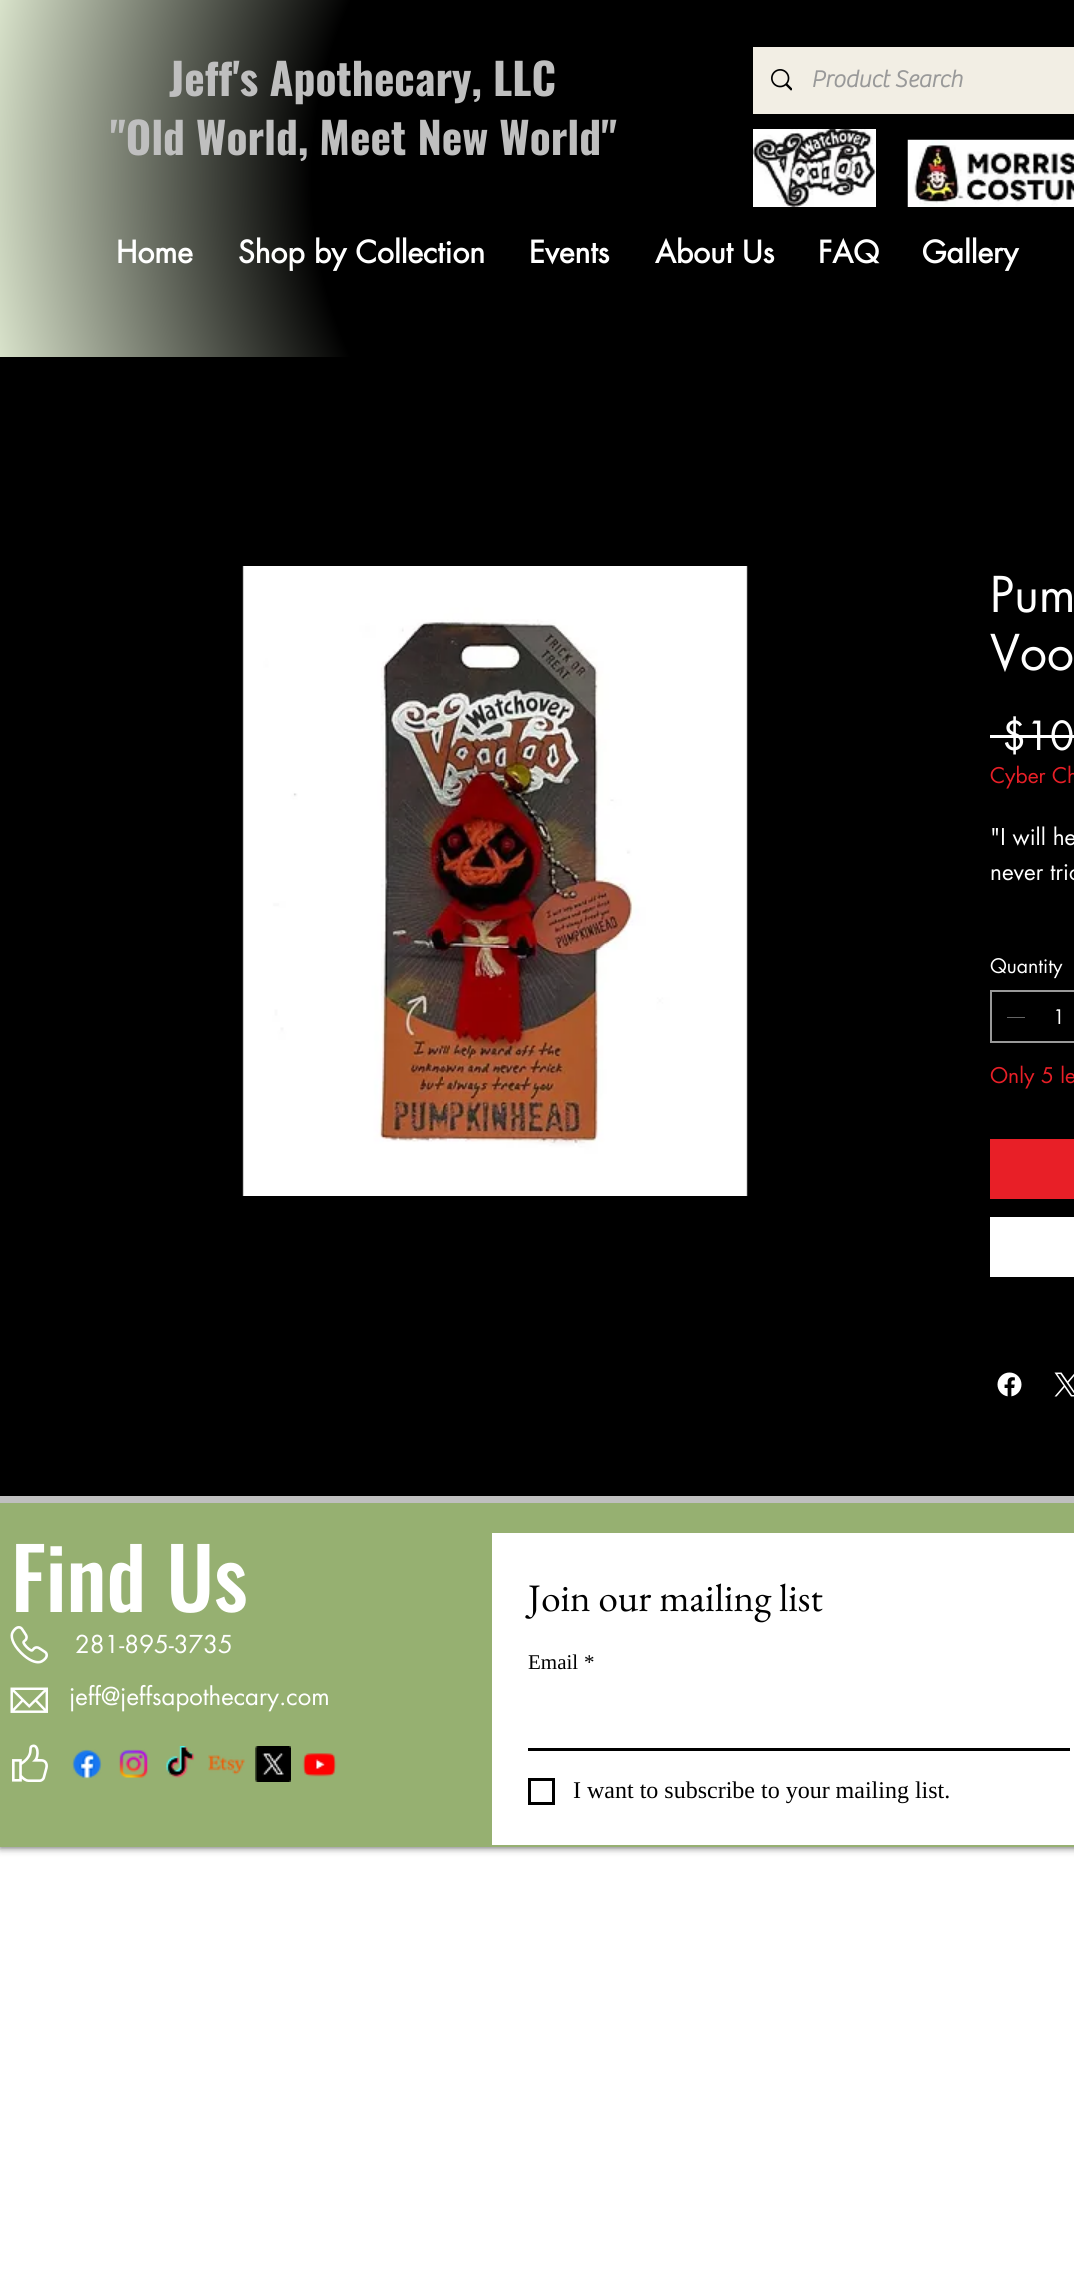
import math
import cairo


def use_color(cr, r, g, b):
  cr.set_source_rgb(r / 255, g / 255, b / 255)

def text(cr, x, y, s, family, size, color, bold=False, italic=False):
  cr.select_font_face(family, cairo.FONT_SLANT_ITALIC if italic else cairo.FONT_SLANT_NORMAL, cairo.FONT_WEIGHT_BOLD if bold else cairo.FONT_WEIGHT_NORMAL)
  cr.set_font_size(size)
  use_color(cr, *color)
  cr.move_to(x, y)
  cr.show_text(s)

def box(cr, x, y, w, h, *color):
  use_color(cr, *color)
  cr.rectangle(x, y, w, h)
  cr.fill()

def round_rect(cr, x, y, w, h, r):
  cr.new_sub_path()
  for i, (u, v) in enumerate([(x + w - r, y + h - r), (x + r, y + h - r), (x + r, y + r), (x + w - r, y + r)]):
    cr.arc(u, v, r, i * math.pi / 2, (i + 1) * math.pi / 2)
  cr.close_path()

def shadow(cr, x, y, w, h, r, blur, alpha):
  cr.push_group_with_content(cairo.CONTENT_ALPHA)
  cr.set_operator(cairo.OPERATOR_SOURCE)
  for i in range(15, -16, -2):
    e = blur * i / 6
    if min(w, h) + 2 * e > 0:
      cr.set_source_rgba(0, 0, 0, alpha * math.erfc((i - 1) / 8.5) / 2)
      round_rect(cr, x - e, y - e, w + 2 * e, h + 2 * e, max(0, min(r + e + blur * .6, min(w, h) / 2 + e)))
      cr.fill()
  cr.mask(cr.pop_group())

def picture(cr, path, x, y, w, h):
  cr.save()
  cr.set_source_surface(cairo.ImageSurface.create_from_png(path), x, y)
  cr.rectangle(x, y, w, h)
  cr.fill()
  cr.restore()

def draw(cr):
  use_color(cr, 255, 255, 255)
  cr.paint()
  gradient = cairo.RadialGradient(735, 179, 0, 735, 179, 756)
  gradient.add_color_stop_rgba(0.56, 0, 0, 0, 1)
  gradient.add_color_stop_rgba(1, 0.847, 0.886, 0.792, 1)
  cr.set_source(gradient)
  cr.rectangle(0, 0, 1074, 357)
  cr.fill()
  box(cr, 753, 47, 321, 67, 242, 238, 228)
  picture(cr, "img_01.png", 771, 69, 21, 22)
  picture(cr, "img_02.png", 753, 129, 123, 78)
  picture(cr, "img_03.png", 907, 139, 167, 68)
  box(cr, 0, 357, 1074, 1139, 0, 0, 0)
  picture(cr, "img_04.png", 242, 566, 506, 630)
  box(cr, 990, 735, 84, 3, 255, 255, 255)
  cr.rectangle(991, 991, 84, 51)
  use_color(cr, 153, 153, 153)
  cr.stroke()
  box(cr, 1007, 1017, 18, 1, 100, 100, 100)
  box(cr, 990, 1139, 84, 60, 232, 31, 39)
  box(cr, 990, 1217, 84, 60, 255, 255, 255)
  picture(cr, "img_05.png", 997, 1372, 25, 25)
  picture(cr, "img_06.png", 1054, 1372, 20, 25)
  use_color(cr, 0, 0, 0)
  shadow(cr, 0, 1496, 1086, 351, 0, 4, 0.7)
  box(cr, 0, 1496, 1074, 7, 191, 191, 191)
  box(cr, 0, 1503, 1074, 344, 150, 176, 113)
  box(cr, 492, 1533, 582, 312, 255, 255, 255)
  box(cr, 528, 1748, 542, 3, 0, 0, 0)
  cr.rectangle(529.5, 1779.5, 24, 24)
  cr.set_line_width(3)
  cr.stroke()
  picture(cr, "img_07.png", 10, 1626, 38, 38)
  picture(cr, "img_08.png", 10, 1687, 38, 26)
  picture(cr, "img_09.png", 12, 1744, 36, 38)
  picture(cr, "img_10.png", 72, 1749, 30, 30)
  picture(cr, "img_11.png", 119, 1749, 29, 29)
  picture(cr, "img_12.png", 165, 1746, 30, 32)
  picture(cr, "img_13.png", 208, 1755, 37, 20)
  picture(cr, "img_14.png", 255, 1746, 36, 36)
  picture(cr, "img_15.png", 302, 1753, 35, 24)
  text(cr, 169, 96, "Jeff's Apothecary, LLC", "Oswald", 43.5, (191, 191, 191), bold=True)
  text(cr, 110, 155, "\"Old World, Meet New World\"", "Oswald", 43.5, (191, 191, 191), bold=True)
  text(cr, 811, 87, "Product Search", "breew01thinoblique", 24, (153, 153, 153), bold=True)
  text(cr, 116, 263, "Home", "futura", 30, (255, 255, 255), bold=True)
  text(cr, 238, 263, "Shop by Collection", "futura", 30, (255, 255, 255), bold=True)
  text(cr, 529, 263, "Events", "futura", 30, (255, 255, 255), bold=True)
  text(cr, 655, 263, "About Us", "futura", 30, (255, 255, 255), bold=True)
  text(cr, 818, 263, "FAQ", "futura", 30, (255, 255, 255), bold=True)
  text(cr, 922, 263, "Gallery", "futura", 30, (255, 255, 255), bold=True)
  text(cr, 990, 612, "Pum", "futura", 48, (255, 255, 255))
  text(cr, 990, 670, "Voo", "futura", 48, (255, 255, 255))
  text(cr, 1002, 750, "$10", "futura", 39, (255, 255, 255))
  text(cr, 990, 783, "Cyber Ch", "futura", 21, (232, 31, 39))
  text(cr, 990, 845, "\"I will he", "futura", 22.5, (255, 255, 255))
  text(cr, 990, 880, "never tric", "futura", 22.5, (255, 255, 255))
  text(cr, 990, 973, "Quantity", "futura", 19.5, (255, 255, 255))
  text(cr, 1053, 1024, "1", "futura", 19.5, (255, 255, 255))
  text(cr, 990, 1083, "Only 5 le", "futura", 21, (232, 31, 39))
  text(cr, 11, 1612, "Find Us", "Oswald Medium", 84, (255, 255, 255))
  text(cr, 528, 1611, "Join our mailing list", "EB Garamond", 39, (0, 0, 0))
  text(cr, 528, 1669, "Email", "Liberation Serif", 21, (0, 0, 0))
  text(cr, 584, 1669, "*", "Liberation Serif", 21, (0, 0, 0))
  text(cr, 573, 1798, "I want to subscribe to your mailing list.", "Liberation Serif", 24, (0, 0, 0))
  text(cr, 75, 1653, "281-895-3735", "futura", 24, (255, 255, 255))
  text(cr, 69, 1705, "jeff@jeffsapothecary.com", "futura", 24, (255, 255, 255))


surface = cairo.ImageSurface(cairo.FORMAT_RGB24, 1074, 2272)
cr = cairo.Context(surface)
options = cairo.FontOptions()
options.set_hint_metrics(cairo.HINT_METRICS_OFF)
options.set_hint_style(cairo.HINT_STYLE_NONE)
cr.set_font_options(options)
cr.set_miter_limit(4)
draw(cr)
surface.write_to_png("out.png")
